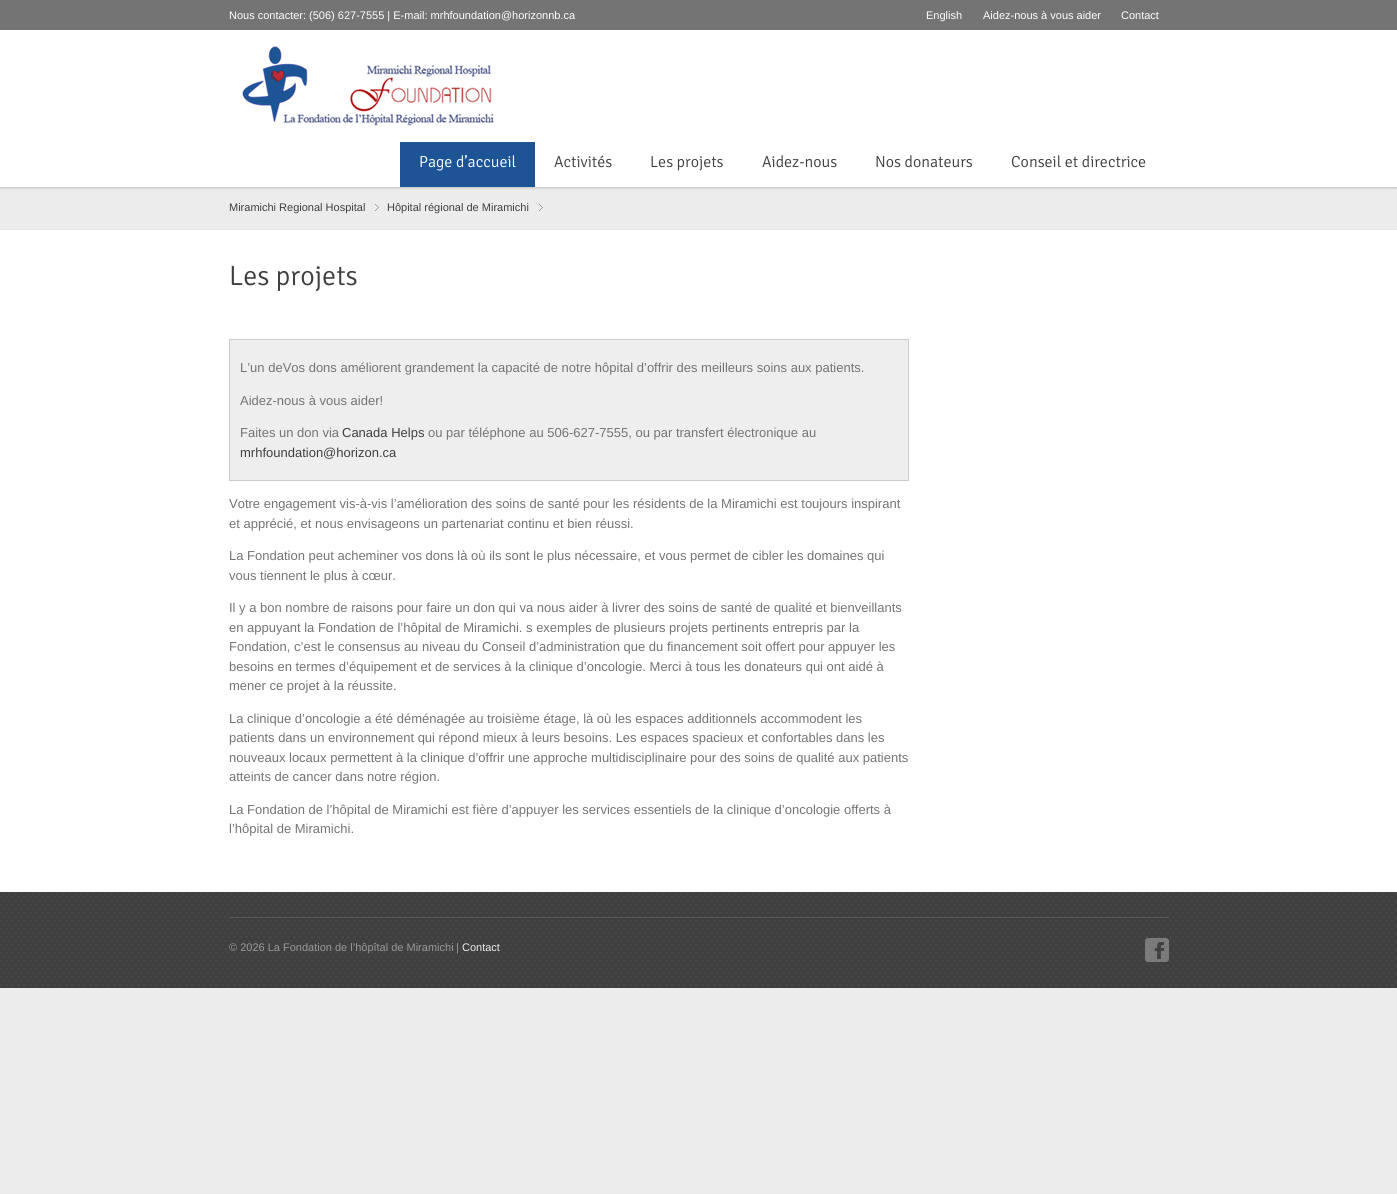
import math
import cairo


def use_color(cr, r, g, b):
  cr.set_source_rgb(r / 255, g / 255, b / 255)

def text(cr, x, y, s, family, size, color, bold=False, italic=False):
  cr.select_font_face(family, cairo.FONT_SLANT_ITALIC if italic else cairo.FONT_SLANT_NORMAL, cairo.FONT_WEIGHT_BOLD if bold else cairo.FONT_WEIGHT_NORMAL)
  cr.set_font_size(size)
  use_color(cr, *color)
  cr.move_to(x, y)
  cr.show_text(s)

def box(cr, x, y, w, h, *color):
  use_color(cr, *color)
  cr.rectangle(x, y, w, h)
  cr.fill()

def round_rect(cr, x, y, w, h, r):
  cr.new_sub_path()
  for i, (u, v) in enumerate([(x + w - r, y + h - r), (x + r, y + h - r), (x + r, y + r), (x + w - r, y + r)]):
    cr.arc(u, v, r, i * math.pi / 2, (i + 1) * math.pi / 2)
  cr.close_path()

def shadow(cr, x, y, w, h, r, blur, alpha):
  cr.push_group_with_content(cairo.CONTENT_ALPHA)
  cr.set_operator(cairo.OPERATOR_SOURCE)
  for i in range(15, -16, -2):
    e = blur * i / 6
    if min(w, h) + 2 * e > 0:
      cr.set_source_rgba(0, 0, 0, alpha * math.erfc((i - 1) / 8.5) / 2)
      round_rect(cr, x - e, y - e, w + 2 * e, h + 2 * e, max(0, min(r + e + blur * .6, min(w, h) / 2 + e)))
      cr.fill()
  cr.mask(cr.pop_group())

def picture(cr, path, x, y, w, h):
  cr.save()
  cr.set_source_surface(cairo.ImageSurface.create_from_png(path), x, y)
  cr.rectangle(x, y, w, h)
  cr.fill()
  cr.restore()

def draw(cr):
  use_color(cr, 236, 236, 236)
  cr.paint()
  box(cr, 0, 30, 1397, 862, 255, 255, 255)
  box(cr, 0, 187, 1397, 42, 236, 236, 236)
  cr.save()
  cr.rectangle(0, 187, 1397, 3)
  cr.clip()
  use_color(cr, 0, 0, 0)
  shadow(cr, 0, 0, 1397, 187, 0, 2, 0.3)
  cr.restore()
  box(cr, 0, 0, 1397, 30, 116, 116, 116)
  picture(cr, "img_01.png", 242, 46, 252, 80)
  box(cr, 400, 142, 135, 45, 28, 84, 149)
  box(cr, 0, 229, 1397, 1, 230, 230, 230)
  picture(cr, "img_02.png", 375, 204, 4, 7)
  picture(cr, "img_02.png", 539, 204, 4, 7)
  use_color(cr, 238, 238, 238)
  cr.rectangle(229.5, 339.5, 679, 141)
  cr.fill_preserve()
  use_color(cr, 204, 204, 204)
  cr.set_line_width(1)
  cr.stroke()
  picture(cr, "img_03.png", 0, 892, 1397, 96)
  box(cr, 229, 917, 940, 1, 87, 87, 87)
  picture(cr, "img_04.png", 1145, 938, 24, 24)
  text(cr, 229, 19, "Nous contacter: (506) 627-7555 | E-mail: mrhfoundation@horizonnb.ca", "Liberation Sans", 11, (255, 255, 255))
  text(cr, 926, 19, "English", "Liberation Sans", 11, (255, 255, 255))
  text(cr, 983, 19, "Aidez-nous à vous aider", "Liberation Sans", 11, (255, 255, 255))
  text(cr, 1121, 19, "Contact", "Liberation Sans", 11, (255, 255, 255))
  text(cr, 419, 167, "Page d’accueil", "Signika Light", 16, (255, 255, 255))
  text(cr, 554, 167, "Activités", "Signika Light", 16, (63, 63, 63))
  text(cr, 650, 167, "Les projets", "Signika Light", 16, (63, 63, 63))
  text(cr, 762, 167, "Aidez-nous", "Signika Light", 16, (63, 63, 63))
  text(cr, 875, 167, "Nos donateurs", "Signika Light", 16, (63, 63, 63))
  text(cr, 1011, 167, "Conseil et directrice", "Signika Light", 16, (63, 63, 63))
  text(cr, 229, 211, "Miramichi Regional Hospital", "Liberation Sans", 11, (63, 63, 63))
  text(cr, 387, 211, "Hôpital régional de Miramichi", "Liberation Sans", 11, (63, 63, 63))
  text(cr, 229, 285, "Les projets", "Signika Light", 28, (63, 63, 63))
  text(cr, 240, 372, "L’un deVos dons améliorent grandement la capacité de notre hôpital d’offrir des meilleurs soins aux patients.", "Liberation Sans", 13, (116, 116, 116))
  text(cr, 240, 405, "Aidez-nous à vous aider!", "Liberation Sans", 13, (116, 116, 116))
  text(cr, 240, 437, "Faites un don via", "Liberation Sans", 13, (116, 116, 116))
  text(cr, 342, 437, "Canada Helps", "Liberation Sans", 13, (63, 63, 63))
  text(cr, 428, 437, "ou par téléphone au 506-627-7555, ou par transfert électronique au", "Liberation Sans", 13, (116, 116, 116))
  text(cr, 240, 457, "mrhfoundation@horizon.ca", "Liberation Sans", 13, (63, 63, 63))
  text(cr, 229, 508, "Votre engagement vis-à-vis l’amélioration des soins de santé pour les résidents de la Miramichi est toujours inspirant", "Liberation Sans", 13, (116, 116, 116))
  text(cr, 229, 528, "et apprécié, et nous envisageons un partenariat continu et bien réussi.", "Liberation Sans", 13, (116, 116, 116))
  text(cr, 229, 560, "La Fondation peut acheminer vos dons là où ils sont le plus nécessaire, et vous permet de cibler les domaines qui", "Liberation Sans", 13, (116, 116, 116))
  text(cr, 229, 580, "vous tiennent le plus à cœur.", "Liberation Sans", 13, (116, 116, 116))
  text(cr, 229, 612, "Il y a bon nombre de raisons pour faire un don qui va nous aider à livrer des soins de santé de qualité et bienveillants", "Liberation Sans", 13, (116, 116, 116))
  text(cr, 229, 632, "en appuyant la Fondation de l’hôpital de Miramichi. s exemples de plusieurs projets pertinents entrepris par la", "Liberation Sans", 13, (116, 116, 116))
  text(cr, 229, 651, "Fondation, c’est le consensus au niveau du Conseil d’administration que du financement soit offert pour appuyer les", "Liberation Sans", 13, (116, 116, 116))
  text(cr, 229, 671, "besoins en termes d’équipement et de services à la clinique d’oncologie. Merci à tous les donateurs qui ont aidé à", "Liberation Sans", 13, (116, 116, 116))
  text(cr, 229, 690, "mener ce projet à la réussite.", "Liberation Sans", 13, (116, 116, 116))
  text(cr, 229, 723, "La clinique d’oncologie a été déménagée au troisième étage, là où les espaces additionnels accommodent les", "Liberation Sans", 13, (116, 116, 116))
  text(cr, 229, 742, "patients dans un environnement qui répond mieux à leurs besoins. Les espaces spacieux et confortables dans les", "Liberation Sans", 13, (116, 116, 116))
  text(cr, 229, 762, "nouveaux locaux permettent à la clinique d’offrir une approche multidisciplinaire pour des soins de qualité aux patients", "Liberation Sans", 13, (116, 116, 116))
  text(cr, 229, 781, "atteints de cancer dans notre région.", "Liberation Sans", 13, (116, 116, 116))
  text(cr, 229, 814, "La Fondation de l’hôpital de Miramichi est fière d’appuyer les services essentiels de la clinique d’oncologie offerts à", "Liberation Sans", 13, (116, 116, 116))
  text(cr, 229, 833, "l’hôpital de Miramichi.", "Liberation Sans", 13, (116, 116, 116))
  cr.save()
  cr.rectangle(229, 918, 940, 70)
  cr.clip()
  text(cr, 229, 951, "© 2026 La Fondation de l’hôpîtal de Miramichi", "Liberation Sans", 11, (153, 153, 153))
  cr.restore()
  text(cr, 456, 951, "|", "Liberation Sans", 11, (153, 153, 153))
  text(cr, 462, 951, "Contact", "Liberation Sans", 11, (235, 235, 235))


surface = cairo.ImageSurface(cairo.FORMAT_RGB24, 1397, 1194)
cr = cairo.Context(surface)
options = cairo.FontOptions()
options.set_hint_metrics(cairo.HINT_METRICS_OFF)
options.set_hint_style(cairo.HINT_STYLE_NONE)
cr.set_font_options(options)
cr.set_miter_limit(4)
draw(cr)
surface.write_to_png("out.png")
